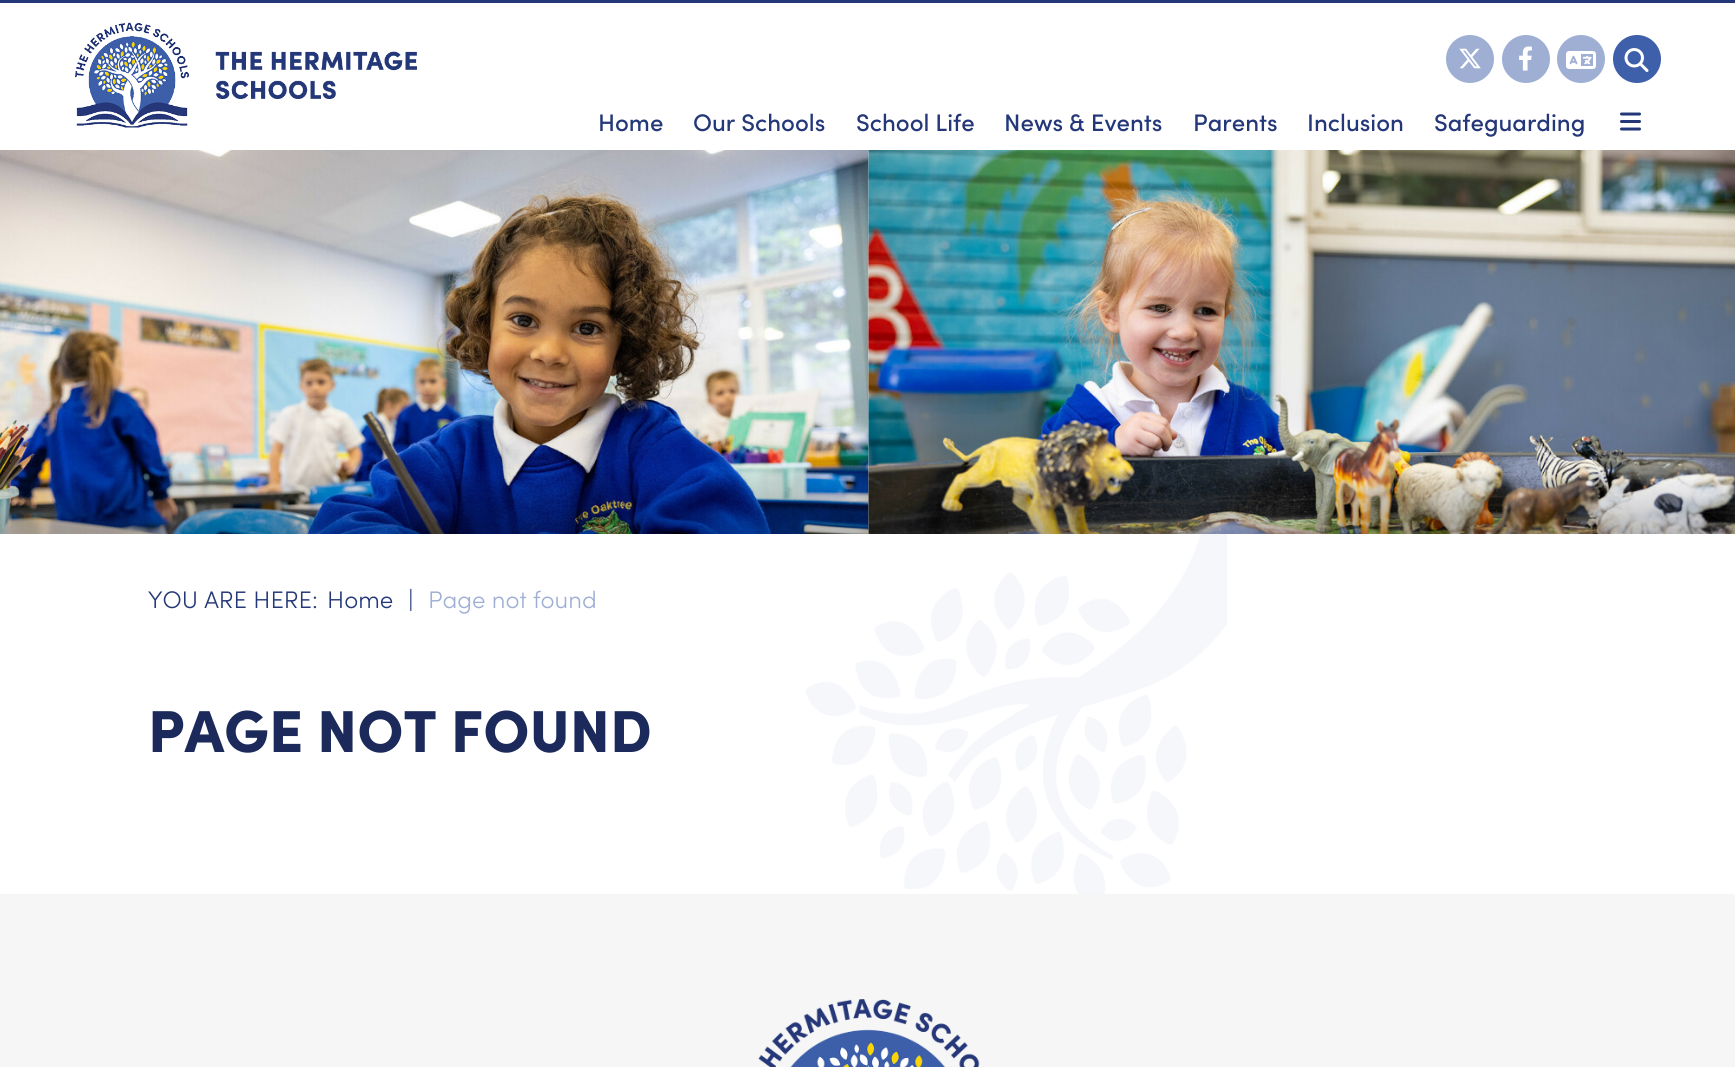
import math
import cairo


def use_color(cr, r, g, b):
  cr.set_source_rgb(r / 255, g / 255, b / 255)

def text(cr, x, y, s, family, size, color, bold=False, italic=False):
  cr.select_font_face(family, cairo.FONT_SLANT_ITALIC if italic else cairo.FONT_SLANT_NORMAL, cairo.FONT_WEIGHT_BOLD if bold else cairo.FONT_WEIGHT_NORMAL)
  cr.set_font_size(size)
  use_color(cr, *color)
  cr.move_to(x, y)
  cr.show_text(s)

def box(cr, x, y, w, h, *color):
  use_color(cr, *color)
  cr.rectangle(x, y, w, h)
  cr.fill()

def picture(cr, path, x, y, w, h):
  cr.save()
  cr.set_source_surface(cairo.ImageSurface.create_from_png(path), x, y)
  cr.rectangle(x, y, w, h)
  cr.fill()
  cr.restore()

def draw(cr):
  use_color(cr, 255, 255, 255)
  cr.paint()
  box(cr, 0, 0, 1735, 3, 36, 56, 121)
  use_color(cr, 159, 175, 212)
  cr.arc(1470, 59, 24, 0, 2 * math.pi)
  cr.fill()
  picture(cr, "img_01.png", 1459, 48, 22, 21)
  cr.arc(1526, 59, 24, 0, 2 * math.pi)
  cr.fill()
  picture(cr, "img_02.png", 1519, 46, 13, 25)
  cr.arc(1581, 59, 24, 0, 2 * math.pi)
  cr.fill()
  picture(cr, "img_03.png", 1566, 51, 30, 18)
  use_color(cr, 62, 95, 169)
  cr.arc(1637, 59, 24, 0, 2 * math.pi)
  cr.fill()
  picture(cr, "img_04.png", 1624, 48, 25, 24)
  picture(cr, "img_05.png", 75, 22, 342, 106)
  picture(cr, "img_06.png", 1620, 112, 21, 19)
  picture(cr, "img_07.png", 0, 150, 869, 384)
  picture(cr, "img_08.png", 868, 150, 867, 384)
  picture(cr, "img_09.png", 805, 534, 422, 360)
  box(cr, 0, 894, 1735, 173, 246, 246, 246)
  picture(cr, "img_10.png", 758, 999, 222, 68)
  text(cr, 598, 131, "Home", "Sofia Medium", 24, (36, 56, 121))
  text(cr, 693, 131, "Our Schools", "Sofia Medium", 24, (36, 56, 121))
  text(cr, 856, 131, "School Life", "Sofia Medium", 24, (36, 56, 121))
  text(cr, 1004, 131, "News & Events", "Sofia Medium", 24, (36, 56, 121))
  text(cr, 1193, 131, "Parents", "Sofia Medium", 24, (36, 56, 121))
  text(cr, 1307, 131, "Inclusion", "Sofia Medium", 24, (36, 56, 121))
  text(cr, 1434, 131, "Safeguarding", "Sofia Medium", 24, (36, 56, 121))
  text(cr, 148, 608, "YOU ARE HERE:", "Sofia Light", 24, (36, 56, 121))
  text(cr, 327, 608, "Home", "Sofia Light", 24, (36, 56, 121))
  text(cr, 408, 608, "|", "Sofia Light", 24, (36, 56, 121))
  text(cr, 428, 608, "Page not found", "Sofia Light", 24, (159, 175, 212))
  text(cr, 148, 752, "PAGE NOT FOUND", "Sofia Black", 59.25, (27, 42, 90))


surface = cairo.ImageSurface(cairo.FORMAT_RGB24, 1735, 1067)
cr = cairo.Context(surface)
options = cairo.FontOptions()
options.set_hint_metrics(cairo.HINT_METRICS_OFF)
options.set_hint_style(cairo.HINT_STYLE_NONE)
cr.set_font_options(options)
cr.set_miter_limit(4)
draw(cr)
surface.write_to_png("out.png")
